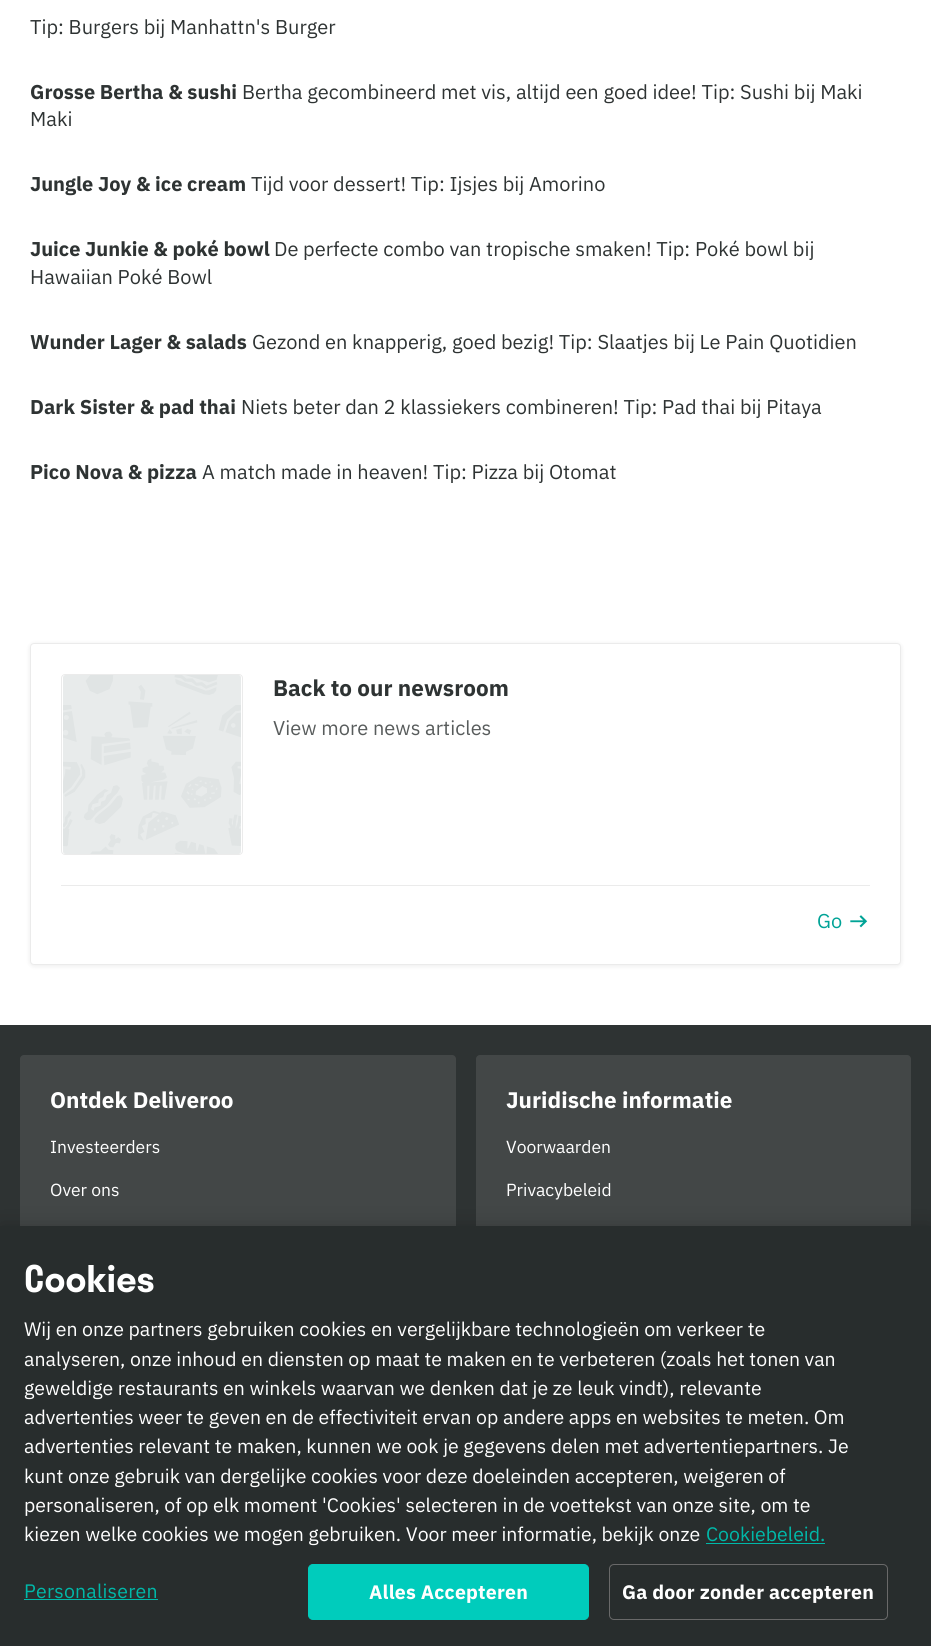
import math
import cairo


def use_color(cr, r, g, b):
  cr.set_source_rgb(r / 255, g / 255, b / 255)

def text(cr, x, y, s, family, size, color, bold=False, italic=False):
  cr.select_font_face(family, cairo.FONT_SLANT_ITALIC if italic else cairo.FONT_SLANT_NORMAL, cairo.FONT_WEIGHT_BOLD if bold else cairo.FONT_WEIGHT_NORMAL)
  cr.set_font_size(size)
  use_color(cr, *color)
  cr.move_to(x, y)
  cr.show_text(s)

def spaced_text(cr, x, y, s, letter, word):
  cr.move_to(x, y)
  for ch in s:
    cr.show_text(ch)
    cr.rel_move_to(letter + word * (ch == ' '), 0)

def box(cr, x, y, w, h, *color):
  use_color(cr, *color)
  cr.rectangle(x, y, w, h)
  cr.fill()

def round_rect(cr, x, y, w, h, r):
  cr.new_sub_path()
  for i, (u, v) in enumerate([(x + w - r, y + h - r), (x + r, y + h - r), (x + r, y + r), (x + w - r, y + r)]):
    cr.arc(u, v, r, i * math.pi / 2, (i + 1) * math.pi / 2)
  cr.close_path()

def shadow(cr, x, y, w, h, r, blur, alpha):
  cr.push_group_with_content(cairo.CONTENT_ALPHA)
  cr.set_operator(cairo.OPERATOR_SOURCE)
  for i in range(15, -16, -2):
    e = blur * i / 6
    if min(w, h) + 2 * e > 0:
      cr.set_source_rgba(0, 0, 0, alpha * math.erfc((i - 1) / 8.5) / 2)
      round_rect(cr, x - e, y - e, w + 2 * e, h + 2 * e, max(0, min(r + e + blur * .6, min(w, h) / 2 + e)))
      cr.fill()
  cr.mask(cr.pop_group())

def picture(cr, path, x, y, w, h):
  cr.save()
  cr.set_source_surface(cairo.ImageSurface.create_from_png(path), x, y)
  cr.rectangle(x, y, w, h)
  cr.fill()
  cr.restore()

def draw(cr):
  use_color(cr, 255, 255, 255)
  cr.paint()
  cr.save()
  cr.set_fill_rule(cairo.FILL_RULE_EVEN_ODD)
  cr.new_path()
  cr.move_to(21, 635)
  cr.line_to(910, 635)
  cr.line_to(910, 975)
  cr.line_to(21, 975)
  cr.close_path()
  cr.move_to(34, 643)
  cr.line_to(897, 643)
  cr.curve_to(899, 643, 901, 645, 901, 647)
  cr.line_to(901, 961)
  cr.curve_to(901, 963, 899, 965, 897, 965)
  cr.line_to(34, 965)
  cr.curve_to(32, 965, 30, 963, 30, 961)
  cr.line_to(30, 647)
  cr.curve_to(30, 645, 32, 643, 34, 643)
  cr.close_path()
  cr.clip()
  use_color(cr, 0, 0, 0)
  shadow(cr, 30, 644, 871, 322, 4, 2.5, 0.08)
  cr.restore()
  round_rect(cr, 30.5, 643.5, 870, 321, 3.5)
  cr.set_source_rgba(0, 0, 0, 0.08)
  cr.set_line_width(1)
  cr.stroke()
  round_rect(cr, 61.5, 674.5, 181, 180, 3.5)
  use_color(cr, 235, 235, 235)
  cr.stroke()
  picture(cr, "img_01.png", 63, 675, 178, 179)
  box(cr, 61, 885, 809, 1, 235, 235, 235)
  picture(cr, "img_02.png", 850, 915, 18, 13)
  box(cr, 0, 1025, 931, 201, 46, 51, 51)
  use_color(cr, 67, 71, 71)
  round_rect(cr, 20, 1055, 436, 528, 4)
  cr.fill()
  round_rect(cr, 476, 1055, 435, 528, 4)
  cr.fill()
  use_color(cr, 0, 0, 0)
  shadow(cr, 0, 1226, 931, 420, 0, 11, 0.2)
  box(cr, 0, 1226, 931, 420, 40, 45, 45)
  box(cr, 706, 1543, 119, 1, 0, 184, 169)
  box(cr, 24, 1599, 134, 1, 0, 184, 169)
  use_color(cr, 0, 204, 188)
  round_rect(cr, 308.5, 1564.5, 280, 55, 4.5)
  cr.fill_preserve()
  cr.stroke()
  round_rect(cr, 609.5, 1564.5, 278, 55, 4.5)
  use_color(cr, 105, 105, 105)
  cr.stroke()
  text(cr, 30, 34, "Tip: Burgers bij Manhattn's Burger", "IBM Plex Sans", 20, (46, 51, 51))
  text(cr, 30, 99, "Grosse Bertha & sushi", "IBM Plex Sans", 20, (46, 51, 51), bold=True)
  text(cr, 242, 99, "Bertha gecombineerd met vis, altijd een goed idee! Tip: Sushi bij Maki", "IBM Plex Sans", 20, (46, 51, 51))
  text(cr, 30, 126, "Maki", "IBM Plex Sans", 20, (46, 51, 51))
  text(cr, 30, 191, "Jungle Joy & ice cream", "IBM Plex Sans", 20, (46, 51, 51), bold=True)
  text(cr, 251, 191, "Tijd voor dessert! Tip: Ijsjes bij Amorino", "IBM Plex Sans", 20, (46, 51, 51))
  text(cr, 30, 256, "Juice Junkie & poké bowl", "IBM Plex Sans", 20, (46, 51, 51), bold=True)
  text(cr, 274, 256, "De perfecte combo van tropische smaken! Tip: Poké bowl bij", "IBM Plex Sans", 20, (46, 51, 51))
  text(cr, 30, 284, "Hawaiian Poké Bowl", "IBM Plex Sans", 20, (46, 51, 51))
  text(cr, 30, 349, "Wunder Lager & salads", "IBM Plex Sans", 20, (46, 51, 51), bold=True)
  text(cr, 252, 349, "Gezond en knapperig, goed bezig! Tip: Slaatjes bij Le Pain Quotidien", "IBM Plex Sans", 20, (46, 51, 51))
  text(cr, 30, 414, "Dark Sister & pad thai", "IBM Plex Sans", 20, (46, 51, 51), bold=True)
  text(cr, 241, 414, "Niets beter dan 2 klassiekers combineren! Tip: Pad thai bij Pitaya", "IBM Plex Sans", 20, (46, 51, 51))
  text(cr, 30, 479, "Pico Nova & pizza", "IBM Plex Sans", 20, (46, 51, 51), bold=True)
  text(cr, 202, 479, "A match made in heaven! Tip: Pizza bij Otomat", "IBM Plex Sans", 20, (46, 51, 51))
  text(cr, 273, 696, "Back to our newsroom", "IBM Plex Sans", 22.5, (46, 51, 51), bold=True)
  text(cr, 273, 735, "View more news articles", "IBM Plex Sans", 20, (88, 92, 92))
  text(cr, 817, 928, "Go", "IBM Plex Sans", 20, (0, 163, 150))
  text(cr, 50, 1108, "Ontdek Deliveroo", "IBM Plex Sans", 22.5, (255, 255, 255), bold=True)
  text(cr, 50, 1153, "Investeerders", "IBM Plex Sans", 17.5, (255, 255, 255))
  text(cr, 50, 1196, "Over ons", "IBM Plex Sans", 17.5, (255, 255, 255))
  text(cr, 506, 1108, "Juridische informatie", "IBM Plex Sans", 22.5, (255, 255, 255), bold=True)
  text(cr, 506, 1153, "Voorwaarden", "IBM Plex Sans", 17.5, (255, 255, 255))
  text(cr, 506, 1196, "Privacybeleid", "IBM Plex Sans", 17.5, (255, 255, 255))
  text(cr, 24, 1292, "Cookies", "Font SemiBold", 36, (255, 255, 255))
  text(cr, 24, 1336, "Wij en onze partners gebruiken cookies en vergelijkbare technologieën om verkeer te", "IBM Plex Sans", 19.5, (255, 255, 255))
  text(cr, 24, 1366, "analyseren, onze inhoud en diensten op maat te maken en te verbeteren (zoals het tonen van", "IBM Plex Sans", 19.5, (255, 255, 255))
  text(cr, 24, 1395, "geweldige restaurants en winkels waarvan we denken dat je ze leuk vindt), relevante", "IBM Plex Sans", 19.5, (255, 255, 255))
  text(cr, 24, 1424, "advertenties weer te geven en de effectiviteit ervan op andere apps en websites te meten. Om", "IBM Plex Sans", 19.5, (255, 255, 255))
  text(cr, 24, 1453, "advertenties relevant te maken, kunnen we ook je gegevens delen met advertentiepartners. Je", "IBM Plex Sans", 19.5, (255, 255, 255))
  text(cr, 24, 1483, "kunt onze gebruik van dergelijke cookies voor deze doeleinden accepteren, weigeren of", "IBM Plex Sans", 19.5, (255, 255, 255))
  text(cr, 24, 1512, "personaliseren, of op elk moment 'Cookies' selecteren in de voettekst van onze site, om te", "IBM Plex Sans", 19.5, (255, 255, 255))
  text(cr, 24, 1541, "kiezen welke cookies we mogen gebruiken. Voor meer informatie, bekijk onze", "IBM Plex Sans", 19.5, (255, 255, 255))
  text(cr, 706, 1541, "Cookiebeleid.", "IBM Plex Sans", 19.5, (0, 184, 169))
  spaced_text(cr, 24, 1598, "Personaliseren", 0.2, 0)
  cr.select_font_face("IBM Plex Sans", cairo.FONT_SLANT_NORMAL, cairo.FONT_WEIGHT_BOLD)
  use_color(cr, 255, 255, 255)
  spaced_text(cr, 369, 1599, "Alles Accepteren", 0.2, 0)
  spaced_text(cr, 622, 1599, "Ga door zonder accepteren", 0.2, 0)


surface = cairo.ImageSurface(cairo.FORMAT_RGB24, 931, 1646)
cr = cairo.Context(surface)
options = cairo.FontOptions()
options.set_hint_metrics(cairo.HINT_METRICS_OFF)
options.set_hint_style(cairo.HINT_STYLE_NONE)
cr.set_font_options(options)
cr.set_miter_limit(4)
draw(cr)
surface.write_to_png("out.png")
